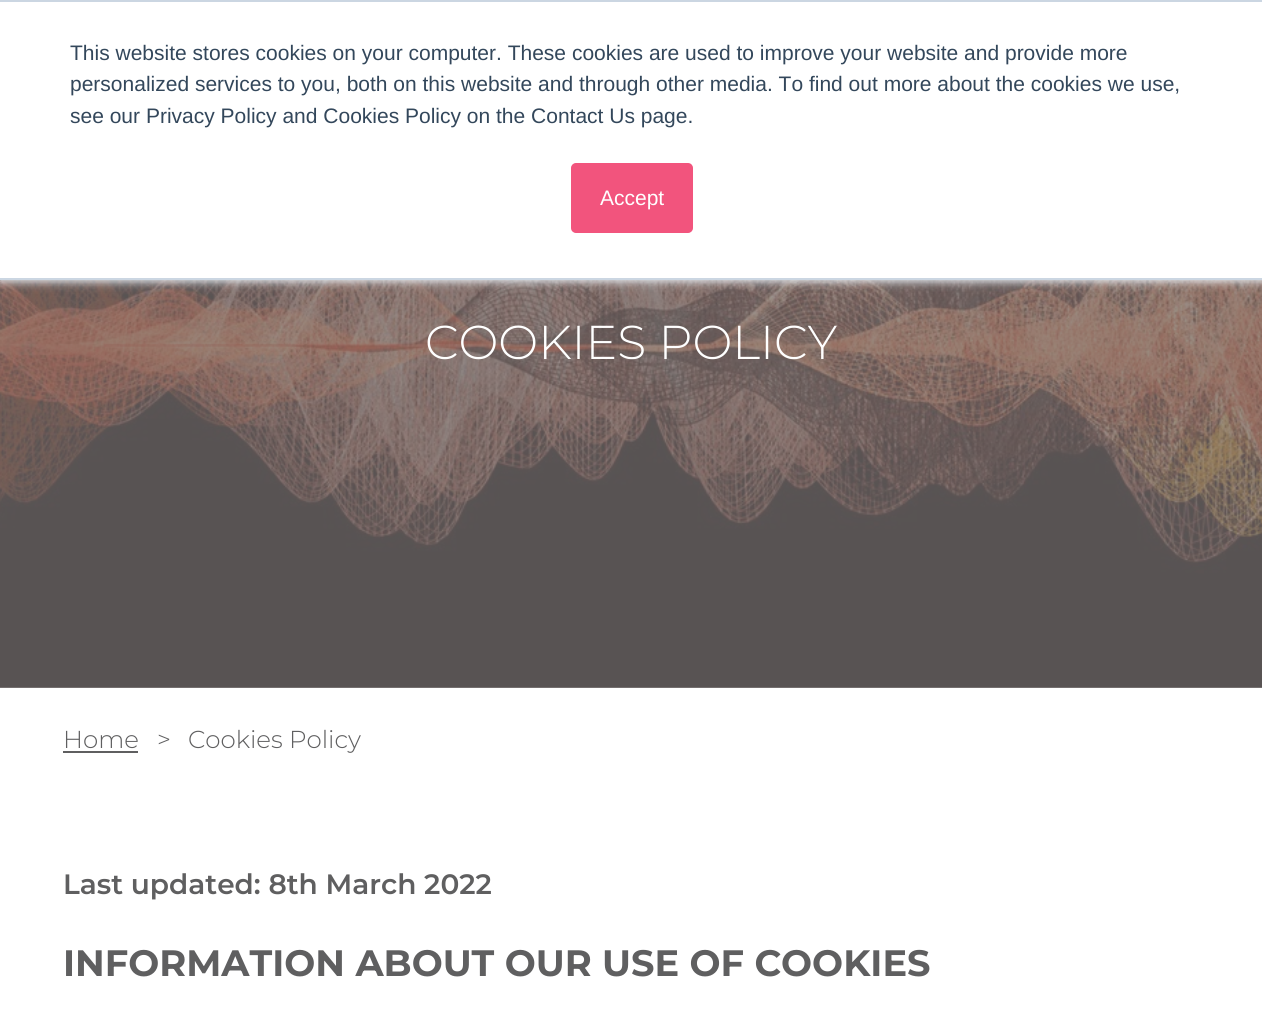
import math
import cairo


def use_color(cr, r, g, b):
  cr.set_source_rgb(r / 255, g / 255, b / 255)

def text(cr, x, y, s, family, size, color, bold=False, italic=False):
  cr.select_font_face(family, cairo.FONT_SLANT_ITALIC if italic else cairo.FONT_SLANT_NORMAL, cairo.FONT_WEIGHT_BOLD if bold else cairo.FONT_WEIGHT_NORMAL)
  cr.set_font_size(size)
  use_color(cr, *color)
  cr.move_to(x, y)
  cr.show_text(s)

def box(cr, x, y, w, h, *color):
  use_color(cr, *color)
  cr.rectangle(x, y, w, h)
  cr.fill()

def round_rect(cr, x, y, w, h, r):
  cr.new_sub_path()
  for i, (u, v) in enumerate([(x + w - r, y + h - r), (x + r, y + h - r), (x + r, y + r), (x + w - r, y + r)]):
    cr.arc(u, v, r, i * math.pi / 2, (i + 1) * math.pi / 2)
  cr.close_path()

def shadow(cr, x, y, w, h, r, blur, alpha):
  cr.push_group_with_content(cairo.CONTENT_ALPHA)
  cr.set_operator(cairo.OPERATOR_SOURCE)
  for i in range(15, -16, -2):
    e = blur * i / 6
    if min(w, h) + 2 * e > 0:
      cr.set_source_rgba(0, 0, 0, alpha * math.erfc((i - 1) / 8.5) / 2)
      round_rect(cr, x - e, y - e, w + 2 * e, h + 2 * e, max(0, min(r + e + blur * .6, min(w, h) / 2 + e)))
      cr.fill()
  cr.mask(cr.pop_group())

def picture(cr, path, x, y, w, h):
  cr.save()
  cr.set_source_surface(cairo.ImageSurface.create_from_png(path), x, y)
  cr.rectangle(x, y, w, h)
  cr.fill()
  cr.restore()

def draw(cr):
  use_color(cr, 255, 255, 255)
  cr.paint()
  box(cr, 0, 687, 1262, 1, 152, 147, 147)
  picture(cr, "img_01.png", 0, 280, 1262, 408)
  use_color(cr, 234, 240, 246)
  shadow(cr, 0, 2, 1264, 280, 0, 4.5, 1)
  box(cr, 0, 2, 1262, 276, 255, 255, 255)
  box(cr, 0, 0, 1262, 2, 203, 214, 226)
  box(cr, 0, 278, 1262, 2, 203, 214, 226)
  use_color(cr, 242, 84, 125)
  round_rect(cr, 572, 164, 120, 68, 4)
  cr.fill_preserve()
  cr.stroke()
  box(cr, 63, 751, 75, 2, 95, 95, 96)
  text(cr, 70, 60, "This website stores cookies on your computer. These cookies are used to improve your website and provide more", "Liberation Sans", 21, (51, 71, 91))
  text(cr, 70, 91, "personalized services to you, both on this website and through other media. To find out more about the cookies we use,", "Liberation Sans", 21, (51, 71, 91))
  text(cr, 70, 123, "see our Privacy Policy and Cookies Policy on the Contact Us page.", "Liberation Sans", 21, (51, 71, 91))
  text(cr, 600, 205, "Accept", "Liberation Sans", 21, (255, 255, 255))
  text(cr, 425, 359, "COOKIES POLICY", "Montserrat Light", 47.5, (255, 255, 255))
  text(cr, 63, 748, "Home", "Montserrat Light", 24.5, (95, 95, 96))
  text(cr, 157, 748, ">", "Montserrat Light", 24.5, (95, 95, 96))
  text(cr, 188, 748, "Cookies Policy", "Montserrat Light", 24.5, (95, 95, 96))
  text(cr, 63, 894, "Last updated: 8th March 2022", "Montserrat SemiBold", 28, (95, 95, 96))
  text(cr, 63, 976, "INFORMATION ABOUT OUR USE OF COOKIES", "Montserrat", 36.75, (95, 95, 96), bold=True)


surface = cairo.ImageSurface(cairo.FORMAT_RGB24, 1262, 1012)
cr = cairo.Context(surface)
options = cairo.FontOptions()
options.set_hint_metrics(cairo.HINT_METRICS_OFF)
options.set_hint_style(cairo.HINT_STYLE_NONE)
cr.set_font_options(options)
cr.set_miter_limit(4)
draw(cr)
surface.write_to_png("out.png")
